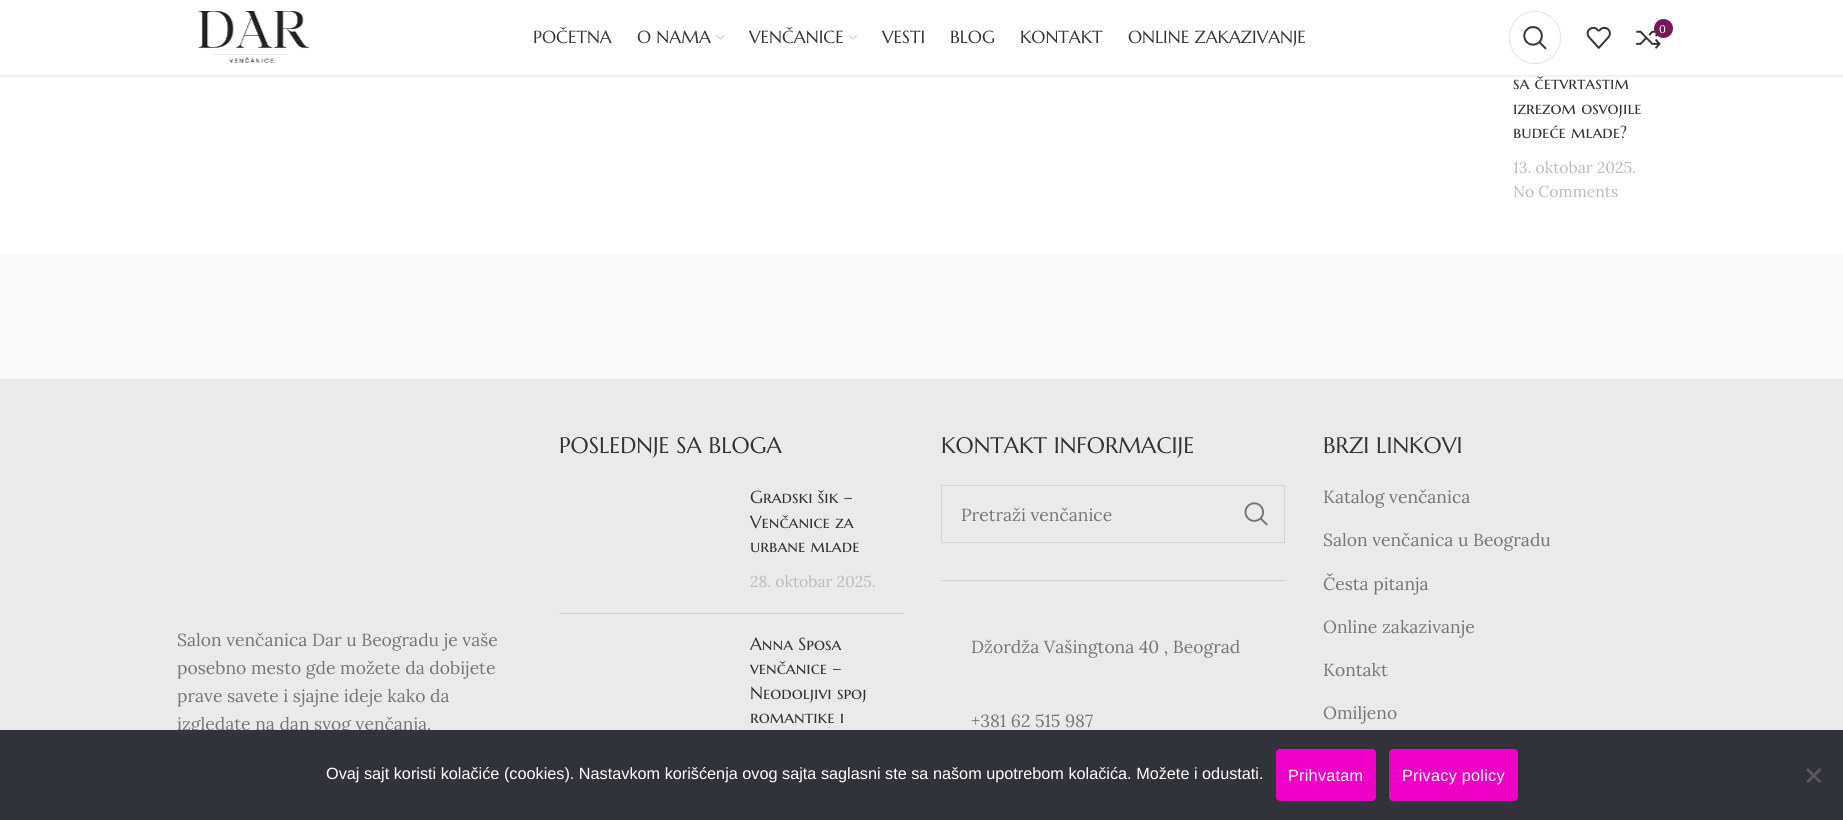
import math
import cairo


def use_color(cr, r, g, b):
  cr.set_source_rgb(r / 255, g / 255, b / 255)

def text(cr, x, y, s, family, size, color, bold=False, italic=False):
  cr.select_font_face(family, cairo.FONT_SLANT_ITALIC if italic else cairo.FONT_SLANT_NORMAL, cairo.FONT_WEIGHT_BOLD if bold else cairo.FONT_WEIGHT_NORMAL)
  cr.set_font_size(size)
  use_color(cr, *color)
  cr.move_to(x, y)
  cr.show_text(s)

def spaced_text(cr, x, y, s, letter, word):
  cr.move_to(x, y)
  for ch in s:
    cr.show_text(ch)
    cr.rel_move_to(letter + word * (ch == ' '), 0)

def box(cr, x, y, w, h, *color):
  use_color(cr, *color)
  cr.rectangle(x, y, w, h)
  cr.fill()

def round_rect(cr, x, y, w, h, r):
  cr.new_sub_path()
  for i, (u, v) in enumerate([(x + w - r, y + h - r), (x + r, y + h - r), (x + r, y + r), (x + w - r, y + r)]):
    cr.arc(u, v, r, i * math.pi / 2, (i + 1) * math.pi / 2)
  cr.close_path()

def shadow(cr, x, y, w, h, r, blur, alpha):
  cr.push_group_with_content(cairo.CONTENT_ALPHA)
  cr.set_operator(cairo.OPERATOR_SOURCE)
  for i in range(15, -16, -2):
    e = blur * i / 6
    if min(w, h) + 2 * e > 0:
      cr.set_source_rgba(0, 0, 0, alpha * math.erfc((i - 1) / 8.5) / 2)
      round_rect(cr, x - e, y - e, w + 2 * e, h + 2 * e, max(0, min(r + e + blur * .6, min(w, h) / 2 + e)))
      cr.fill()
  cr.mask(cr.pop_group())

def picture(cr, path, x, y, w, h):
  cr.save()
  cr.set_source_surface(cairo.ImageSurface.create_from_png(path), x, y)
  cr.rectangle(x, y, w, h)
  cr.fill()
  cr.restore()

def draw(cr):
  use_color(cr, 255, 255, 255)
  cr.paint()
  use_color(cr, 0, 0, 0)
  shadow(cr, 0, 1, 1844, 75, 0, 2, 0.1)
  box(cr, 0, 0, 1843, 75, 255, 255, 255)
  picture(cr, "img_01.png", 198, 11, 112, 52)
  picture(cr, "img_02.png", 716, 35, 9, 5)
  picture(cr, "img_03.png", 849, 35, 8, 5)
  round_rect(cr, 1509.5, 11.5, 51, 52, 25.5)
  use_color(cr, 228, 228, 228)
  cr.set_line_width(1)
  cr.stroke()
  picture(cr, "img_04.png", 1523, 26, 24, 24)
  picture(cr, "img_05.png", 1586, 26, 25, 23)
  picture(cr, "img_06.png", 1636, 28, 25, 21)
  use_color(cr, 118, 24, 85)
  cr.arc(1663.5, 28.5, 9.5, 0, 2 * math.pi)
  cr.fill()
  box(cr, 0, 254, 1843, 125, 249, 249, 249)
  box(cr, 0, 379, 1843, 351, 234, 234, 234)
  box(cr, 559, 613, 345, 1, 209, 209, 209)
  box(cr, 941, 580, 344, 1, 209, 209, 209)
  cr.rectangle(941.5, 485.5, 343, 57)
  use_color(cr, 211, 211, 211)
  cr.stroke()
  picture(cr, "img_07.png", 1244, 502, 24, 24)
  text(cr, 533, 43, "POČETNA", "Marcellus SC", 17.5, (51, 51, 51))
  text(cr, 637, 43, "O NAMA", "Marcellus SC", 17.5, (51, 51, 51))
  text(cr, 749, 43, "VENČANICE", "Marcellus SC", 17.5, (51, 51, 51))
  text(cr, 882, 43, "VESTI", "Marcellus SC", 17.5, (51, 51, 51))
  text(cr, 950, 43, "BLOG", "Marcellus SC", 17.5, (51, 51, 51))
  text(cr, 1020, 43, "KONTAKT", "Marcellus SC", 17.5, (51, 51, 51))
  text(cr, 1128, 43, "ONLINE ZAKAZIVANJE", "Marcellus SC", 17.5, (51, 51, 51))
  text(cr, 1659, 33, "0", "Lora", 11, (255, 255, 255))
  text(cr, 1513, 89, "sa četvrtastim", "Marcellus SC", 17.5, (51, 51, 51))
  text(cr, 1513, 114, "izrezom osvojile", "Marcellus SC", 17.5, (51, 51, 51))
  text(cr, 1513, 138, "budeće mlade?", "Marcellus SC", 17.5, (51, 51, 51))
  text(cr, 1513, 173, "13. oktobar 2025.", "Lora", 15.75, (187, 187, 187))
  text(cr, 1513, 197, "No Comments", "Lora", 15.75, (187, 187, 187))
  text(cr, 177, 646, "Salon venčanica Dar u Beogradu je vaše", "Lora", 17.5, (118, 118, 118))
  text(cr, 177, 674, "posebno mesto gde možete da dobijete", "Lora", 17.5, (118, 118, 118))
  text(cr, 177, 702, "prave savete i sjajne ideje kako da", "Lora", 17.5, (118, 118, 118))
  text(cr, 177, 730, "izgledate na dan svog venčanja.", "Lora", 17.5, (118, 118, 118))
  text(cr, 559, 453, "POSLEDNJE SA BLOGA", "Marcellus SC", 22.5, (51, 51, 51))
  text(cr, 750, 503, "Gradski šik –", "Marcellus SC", 17.5, (51, 51, 51))
  text(cr, 750, 528, "Venčanice za", "Marcellus SC", 17.5, (51, 51, 51))
  text(cr, 750, 552, "urbane mlade", "Marcellus SC", 17.5, (51, 51, 51))
  text(cr, 750, 587, "28. oktobar 2025.", "Lora", 15.75, (187, 187, 187))
  text(cr, 750, 650, "Anna Sposa", "Marcellus SC", 17.5, (51, 51, 51))
  text(cr, 750, 674, "venčanice –", "Marcellus SC", 17.5, (51, 51, 51))
  text(cr, 750, 699, "Neodoljivi spoj", "Marcellus SC", 17.5, (51, 51, 51))
  text(cr, 750, 723, "romantike i", "Marcellus SC", 17.5, (51, 51, 51))
  text(cr, 941, 453, "KONTAKT INFORMACIJE", "Marcellus SC", 22.5, (51, 51, 51))
  text(cr, 961, 521, "Pretraži venčanice", "Lora", 17.5, (118, 118, 118))
  text(cr, 971, 653, "Džordža Vašingtona 40 , Beograd", "Lora", 17.5, (118, 118, 118))
  text(cr, 971, 727, "+381 62 515 987", "Lora", 17.5, (118, 118, 118))
  text(cr, 1323, 453, "BRZI LINKOVI", "Marcellus SC", 22.5, (51, 51, 51))
  text(cr, 1323, 503, "Katalog venčanica", "Lora", 17.5, (118, 118, 118))
  text(cr, 1323, 546, "Salon venčanica u Beogradu", "Lora", 17.5, (118, 118, 118))
  text(cr, 1323, 590, "Česta pitanja", "Lora", 17.5, (118, 118, 118))
  text(cr, 1323, 633, "Online zakazivanje", "Lora", 17.5, (118, 118, 118))
  text(cr, 1323, 676, "Kontakt", "Lora", 17.5, (118, 118, 118))
  text(cr, 1323, 719, "Omiljeno", "Lora", 17.5, (118, 118, 118))
  box(cr, 0, 730, 1843, 90, 50, 50, 58)
  text(cr, 326, 779, "Ovaj sajt koristi kolačiće (cookies). Nastavkom korišćenja ovog sajta saglasni ste sa našom upotrebom kolačića. Možete i odustati.", "Liberation Sans", 16.25, (255, 255, 255))
  use_color(cr, 239, 0, 199)
  round_rect(cr, 1276, 749, 100, 52, 4)
  cr.fill()
  use_color(cr, 255, 255, 255)
  spaced_text(cr, 1288, 781, "Prihvatam", 0.25, 0)
  use_color(cr, 239, 0, 199)
  round_rect(cr, 1389, 749, 129, 52, 4)
  cr.fill()
  use_color(cr, 255, 255, 255)
  spaced_text(cr, 1402, 781, "Privacy policy", 0.25, 0)
  use_color(cr, 89, 89, 93)
  cr.new_path()
  cr.move_to(1819.5, 768)
  cr.line_to(1821.5, 770)
  cr.line_to(1808, 783)
  cr.line_to(1806, 781.5)
  cr.close_path()
  cr.fill()
  cr.new_path()
  cr.move_to(1806, 770)
  cr.line_to(1808, 768)
  cr.line_to(1821.5, 781.5)
  cr.line_to(1819.5, 783)
  cr.close_path()
  cr.fill()


surface = cairo.ImageSurface(cairo.FORMAT_RGB24, 1843, 820)
cr = cairo.Context(surface)
options = cairo.FontOptions()
options.set_hint_metrics(cairo.HINT_METRICS_OFF)
options.set_hint_style(cairo.HINT_STYLE_NONE)
cr.set_font_options(options)
cr.set_miter_limit(4)
draw(cr)
surface.write_to_png("out.png")
